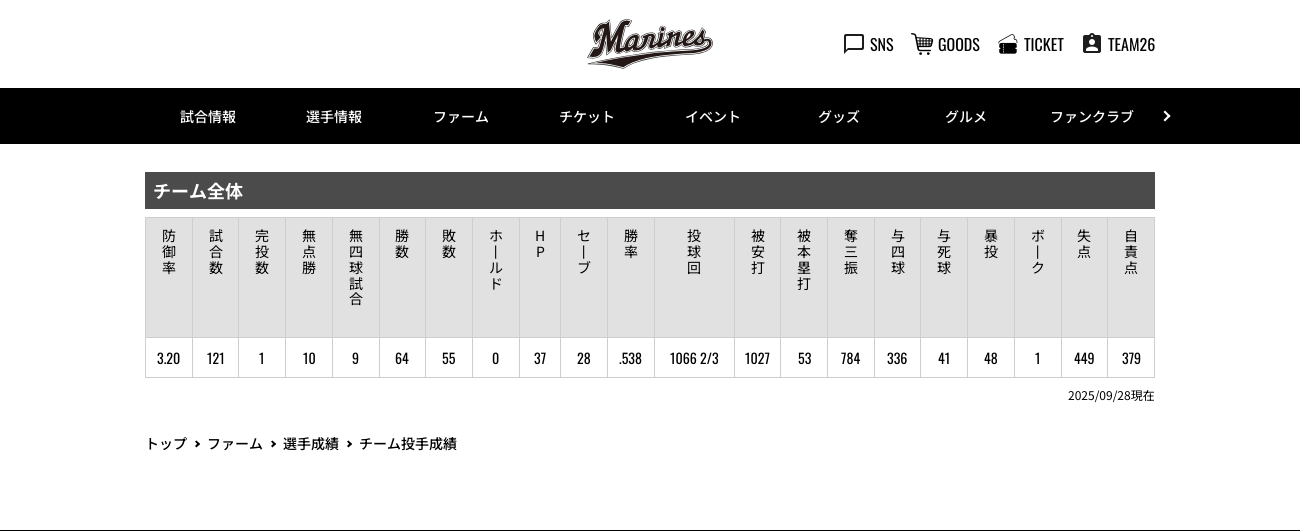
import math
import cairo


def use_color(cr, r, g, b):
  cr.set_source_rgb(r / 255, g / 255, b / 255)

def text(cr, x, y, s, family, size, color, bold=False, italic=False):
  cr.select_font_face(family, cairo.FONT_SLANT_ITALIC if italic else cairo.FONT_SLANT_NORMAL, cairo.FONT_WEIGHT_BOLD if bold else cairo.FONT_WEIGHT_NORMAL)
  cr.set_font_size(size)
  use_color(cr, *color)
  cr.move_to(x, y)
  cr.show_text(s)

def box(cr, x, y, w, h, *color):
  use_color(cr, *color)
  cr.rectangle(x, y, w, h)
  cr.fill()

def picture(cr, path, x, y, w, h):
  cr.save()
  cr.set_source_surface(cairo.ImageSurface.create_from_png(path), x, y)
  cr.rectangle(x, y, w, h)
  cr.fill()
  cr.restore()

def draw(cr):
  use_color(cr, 255, 255, 255)
  cr.paint()
  picture(cr, "img_01.png", 587, 19, 126, 50)
  picture(cr, "img_02.png", 844, 34, 20, 20)
  picture(cr, "img_03.png", 911, 33, 23, 22)
  picture(cr, "img_04.png", 998, 34, 20, 20)
  picture(cr, "img_05.png", 1083, 33, 18, 20)
  box(cr, 0, 88, 1300, 56, 0, 0, 0)
  use_color(cr, 255, 255, 255)
  cr.new_path()
  cr.move_to(1165, 110.5)
  cr.line_to(1170.5, 116)
  cr.line_to(1169, 117.5)
  cr.line_to(1163.5, 112)
  cr.close_path()
  cr.fill()
  cr.new_path()
  cr.move_to(1169, 114.5)
  cr.line_to(1170.5, 116)
  cr.line_to(1165, 121.5)
  cr.line_to(1163.5, 120)
  cr.close_path()
  cr.fill()
  box(cr, 145, 172, 1010, 37, 75, 75, 75)
  box(cr, 146, 218, 46, 119, 225, 225, 225)
  box(cr, 1107, 217, 48, 1, 206, 206, 206)
  box(cr, 1107, 337, 48, 1, 206, 206, 206)
  box(cr, 1154, 337, 1, 41, 206, 206, 206)
  box(cr, 1107, 377, 48, 1, 206, 206, 206)
  box(cr, 1107, 337, 1, 41, 206, 206, 206)
  box(cr, 1061, 337, 47, 1, 206, 206, 206)
  box(cr, 1107, 217, 1, 121, 206, 206, 206)
  box(cr, 1061, 217, 47, 1, 206, 206, 206)
  box(cr, 1061, 377, 47, 1, 206, 206, 206)
  box(cr, 1061, 337, 1, 41, 206, 206, 206)
  box(cr, 1014, 337, 48, 1, 206, 206, 206)
  box(cr, 1061, 217, 1, 121, 206, 206, 206)
  box(cr, 1014, 217, 48, 1, 206, 206, 206)
  box(cr, 1014, 377, 48, 1, 206, 206, 206)
  box(cr, 1014, 337, 1, 41, 206, 206, 206)
  box(cr, 967, 337, 48, 1, 206, 206, 206)
  box(cr, 1014, 217, 1, 121, 206, 206, 206)
  box(cr, 967, 217, 48, 1, 206, 206, 206)
  box(cr, 967, 377, 48, 1, 206, 206, 206)
  box(cr, 967, 337, 1, 41, 206, 206, 206)
  box(cr, 920, 337, 48, 1, 206, 206, 206)
  box(cr, 967, 217, 1, 121, 206, 206, 206)
  box(cr, 920, 217, 48, 1, 206, 206, 206)
  box(cr, 920, 377, 48, 1, 206, 206, 206)
  box(cr, 920, 337, 1, 41, 206, 206, 206)
  box(cr, 874, 337, 47, 1, 206, 206, 206)
  box(cr, 920, 217, 1, 121, 206, 206, 206)
  box(cr, 874, 217, 47, 1, 206, 206, 206)
  box(cr, 874, 377, 47, 1, 206, 206, 206)
  box(cr, 874, 337, 1, 41, 206, 206, 206)
  box(cr, 827, 337, 48, 1, 206, 206, 206)
  box(cr, 874, 217, 1, 121, 206, 206, 206)
  box(cr, 827, 217, 48, 1, 206, 206, 206)
  box(cr, 827, 377, 48, 1, 206, 206, 206)
  box(cr, 827, 337, 1, 41, 206, 206, 206)
  box(cr, 780, 337, 48, 1, 206, 206, 206)
  box(cr, 827, 217, 1, 121, 206, 206, 206)
  box(cr, 780, 217, 48, 1, 206, 206, 206)
  box(cr, 780, 377, 48, 1, 206, 206, 206)
  box(cr, 780, 337, 1, 41, 206, 206, 206)
  box(cr, 734, 337, 47, 1, 206, 206, 206)
  box(cr, 780, 217, 1, 121, 206, 206, 206)
  box(cr, 734, 217, 47, 1, 206, 206, 206)
  box(cr, 734, 377, 47, 1, 206, 206, 206)
  box(cr, 734, 337, 1, 41, 206, 206, 206)
  box(cr, 654, 337, 81, 1, 206, 206, 206)
  box(cr, 734, 217, 1, 121, 206, 206, 206)
  box(cr, 654, 217, 81, 1, 206, 206, 206)
  box(cr, 654, 377, 81, 1, 206, 206, 206)
  box(cr, 654, 337, 1, 41, 206, 206, 206)
  box(cr, 607, 337, 48, 1, 206, 206, 206)
  box(cr, 654, 217, 1, 121, 206, 206, 206)
  box(cr, 607, 217, 48, 1, 206, 206, 206)
  box(cr, 607, 377, 48, 1, 206, 206, 206)
  box(cr, 607, 337, 1, 41, 206, 206, 206)
  box(cr, 560, 337, 48, 1, 206, 206, 206)
  box(cr, 607, 217, 1, 121, 206, 206, 206)
  box(cr, 560, 217, 48, 1, 206, 206, 206)
  box(cr, 560, 377, 48, 1, 206, 206, 206)
  box(cr, 560, 337, 1, 41, 206, 206, 206)
  box(cr, 519, 337, 42, 1, 206, 206, 206)
  box(cr, 560, 217, 1, 121, 206, 206, 206)
  box(cr, 519, 217, 42, 1, 206, 206, 206)
  box(cr, 519, 377, 42, 1, 206, 206, 206)
  box(cr, 519, 337, 1, 41, 206, 206, 206)
  box(cr, 472, 337, 48, 1, 206, 206, 206)
  box(cr, 519, 217, 1, 121, 206, 206, 206)
  box(cr, 472, 217, 48, 1, 206, 206, 206)
  box(cr, 472, 377, 48, 1, 206, 206, 206)
  box(cr, 472, 337, 1, 41, 206, 206, 206)
  box(cr, 425, 337, 48, 1, 206, 206, 206)
  box(cr, 472, 217, 1, 121, 206, 206, 206)
  box(cr, 425, 217, 48, 1, 206, 206, 206)
  box(cr, 425, 377, 48, 1, 206, 206, 206)
  box(cr, 425, 337, 1, 41, 206, 206, 206)
  box(cr, 379, 337, 47, 1, 206, 206, 206)
  box(cr, 425, 217, 1, 121, 206, 206, 206)
  box(cr, 379, 217, 47, 1, 206, 206, 206)
  box(cr, 379, 377, 47, 1, 206, 206, 206)
  box(cr, 379, 337, 1, 41, 206, 206, 206)
  box(cr, 332, 337, 48, 1, 206, 206, 206)
  box(cr, 379, 217, 1, 121, 206, 206, 206)
  box(cr, 332, 217, 48, 1, 206, 206, 206)
  box(cr, 332, 377, 48, 1, 206, 206, 206)
  box(cr, 332, 337, 1, 41, 206, 206, 206)
  box(cr, 285, 337, 48, 1, 206, 206, 206)
  box(cr, 332, 217, 1, 121, 206, 206, 206)
  box(cr, 285, 217, 48, 1, 206, 206, 206)
  box(cr, 285, 377, 48, 1, 206, 206, 206)
  box(cr, 285, 337, 1, 41, 206, 206, 206)
  box(cr, 238, 337, 48, 1, 206, 206, 206)
  box(cr, 285, 217, 1, 121, 206, 206, 206)
  box(cr, 238, 217, 48, 1, 206, 206, 206)
  box(cr, 238, 377, 48, 1, 206, 206, 206)
  box(cr, 238, 337, 1, 41, 206, 206, 206)
  box(cr, 192, 337, 47, 1, 206, 206, 206)
  box(cr, 238, 217, 1, 121, 206, 206, 206)
  box(cr, 192, 217, 47, 1, 206, 206, 206)
  box(cr, 192, 377, 47, 1, 206, 206, 206)
  box(cr, 192, 337, 1, 41, 206, 206, 206)
  box(cr, 145, 337, 48, 1, 206, 206, 206)
  box(cr, 192, 217, 1, 121, 206, 206, 206)
  box(cr, 145, 217, 48, 1, 206, 206, 206)
  box(cr, 145, 377, 48, 1, 206, 206, 206)
  box(cr, 145, 337, 1, 41, 206, 206, 206)
  box(cr, 145, 217, 1, 121, 206, 206, 206)
  box(cr, 193, 218, 45, 119, 225, 225, 225)
  box(cr, 239, 218, 46, 119, 225, 225, 225)
  box(cr, 286, 218, 46, 119, 225, 225, 225)
  box(cr, 333, 218, 46, 119, 225, 225, 225)
  box(cr, 380, 218, 45, 119, 225, 225, 225)
  box(cr, 426, 218, 46, 119, 225, 225, 225)
  box(cr, 473, 218, 46, 119, 225, 225, 225)
  box(cr, 520, 218, 40, 119, 225, 225, 225)
  box(cr, 561, 218, 46, 119, 225, 225, 225)
  box(cr, 608, 218, 46, 119, 225, 225, 225)
  box(cr, 655, 218, 79, 119, 225, 225, 225)
  box(cr, 735, 218, 45, 119, 225, 225, 225)
  box(cr, 781, 218, 46, 119, 225, 225, 225)
  box(cr, 828, 218, 46, 119, 225, 225, 225)
  box(cr, 875, 218, 45, 119, 225, 225, 225)
  box(cr, 921, 218, 46, 119, 225, 225, 225)
  box(cr, 968, 218, 46, 119, 225, 225, 225)
  box(cr, 1015, 218, 46, 119, 225, 225, 225)
  box(cr, 1062, 218, 45, 119, 225, 225, 225)
  box(cr, 1108, 218, 46, 119, 225, 225, 225)
  box(cr, 1154, 217, 1, 121, 206, 206, 206)
  use_color(cr, 0, 0, 0)
  cr.new_path()
  cr.move_to(196.5, 440.5)
  cr.line_to(200, 444)
  cr.line_to(198.5, 445.5)
  cr.line_to(195, 441.5)
  cr.close_path()
  cr.fill()
  cr.new_path()
  cr.move_to(198.5, 442.5)
  cr.line_to(200, 444)
  cr.line_to(196.5, 447.5)
  cr.line_to(195, 446)
  cr.close_path()
  cr.fill()
  cr.new_path()
  cr.move_to(272.5, 440.5)
  cr.line_to(276, 444)
  cr.line_to(274.5, 445.5)
  cr.line_to(271, 441.5)
  cr.close_path()
  cr.fill()
  cr.new_path()
  cr.move_to(274.5, 442.5)
  cr.line_to(276, 444)
  cr.line_to(272.5, 447.5)
  cr.line_to(271, 446)
  cr.close_path()
  cr.fill()
  cr.new_path()
  cr.move_to(348.5, 440.5)
  cr.line_to(352, 444)
  cr.line_to(350.5, 445.5)
  cr.line_to(347, 441.5)
  cr.close_path()
  cr.fill()
  cr.new_path()
  cr.move_to(350.5, 442.5)
  cr.line_to(352, 444)
  cr.line_to(348.5, 447.5)
  cr.line_to(347, 446)
  cr.close_path()
  cr.fill()
  box(cr, 0, 530, 1300, 1, 0, 0, 0)
  text(cr, 870, 51, "SNS", "Oswald", 16, (0, 0, 0))
  text(cr, 938, 51, "GOODS", "Oswald", 16, (0, 0, 0))
  text(cr, 1024, 51, "TICKET", "Oswald", 16, (0, 0, 0))
  text(cr, 1108, 51, "TEAM26", "Oswald", 16, (0, 0, 0))
  text(cr, 180, 122, "試合情報", "Noto Sans JP Medium", 14, (255, 255, 255))
  text(cr, 306, 122, "選手情報", "Noto Sans JP Medium", 14, (255, 255, 255))
  text(cr, 433, 122, "ファーム", "Noto Sans JP Medium", 14, (255, 255, 255))
  text(cr, 559, 122, "チケット", "Noto Sans JP Medium", 14, (255, 255, 255))
  text(cr, 685, 122, "イベント", "Noto Sans JP Medium", 14, (255, 255, 255))
  text(cr, 818, 122, "グッズ", "Noto Sans JP Medium", 14, (255, 255, 255))
  text(cr, 945, 122, "グルメ", "Noto Sans JP Medium", 14, (255, 255, 255))
  text(cr, 1050, 122, "ファンクラブ", "Noto Sans JP Medium", 14, (255, 255, 255))
  text(cr, 153, 198, "チーム全体", "Noto Sans JP", 18, (255, 255, 255), bold=True)
  text(cr, 162, 241, "防", "Noto Sans JP", 14, (0, 0, 0))
  text(cr, 162, 257, "御", "Noto Sans JP", 14, (0, 0, 0))
  text(cr, 162, 273, "率", "Noto Sans JP", 14, (0, 0, 0))
  text(cr, 209, 241, "試", "Noto Sans JP", 14, (0, 0, 0))
  text(cr, 209, 257, "合", "Noto Sans JP", 14, (0, 0, 0))
  text(cr, 209, 273, "数", "Noto Sans JP", 14, (0, 0, 0))
  text(cr, 255, 241, "完", "Noto Sans JP", 14, (0, 0, 0))
  text(cr, 255, 257, "投", "Noto Sans JP", 14, (0, 0, 0))
  text(cr, 255, 273, "数", "Noto Sans JP", 14, (0, 0, 0))
  text(cr, 302, 241, "無", "Noto Sans JP", 14, (0, 0, 0))
  text(cr, 302, 257, "点", "Noto Sans JP", 14, (0, 0, 0))
  text(cr, 302, 273, "勝", "Noto Sans JP", 14, (0, 0, 0))
  text(cr, 349, 241, "無", "Noto Sans JP", 14, (0, 0, 0))
  text(cr, 349, 257, "四", "Noto Sans JP", 14, (0, 0, 0))
  text(cr, 349, 273, "球", "Noto Sans JP", 14, (0, 0, 0))
  text(cr, 349, 289, "試", "Noto Sans JP", 14, (0, 0, 0))
  text(cr, 349, 304, "合", "Noto Sans JP", 14, (0, 0, 0))
  text(cr, 395, 241, "勝", "Noto Sans JP", 14, (0, 0, 0))
  text(cr, 395, 257, "数", "Noto Sans JP", 14, (0, 0, 0))
  text(cr, 442, 241, "敗", "Noto Sans JP", 14, (0, 0, 0))
  text(cr, 442, 257, "数", "Noto Sans JP", 14, (0, 0, 0))
  text(cr, 489, 241, "ホ", "Noto Sans JP", 14, (0, 0, 0))
  text(cr, 489, 257, "丨", "WenQuanYi Zen Hei Medium", 14, (0, 0, 0))
  text(cr, 489, 273, "ル", "Noto Sans JP", 14, (0, 0, 0))
  text(cr, 489, 289, "ド", "Noto Sans JP", 14, (0, 0, 0))
  text(cr, 535, 241, "H", "Noto Sans JP", 14, (0, 0, 0))
  text(cr, 536, 257, "P", "Noto Sans JP", 14, (0, 0, 0))
  text(cr, 577, 241, "セ", "Noto Sans JP", 14, (0, 0, 0))
  text(cr, 577, 257, "丨", "WenQuanYi Zen Hei Medium", 14, (0, 0, 0))
  text(cr, 577, 273, "ブ", "Noto Sans JP", 14, (0, 0, 0))
  text(cr, 624, 241, "勝", "Noto Sans JP", 14, (0, 0, 0))
  text(cr, 624, 257, "率", "Noto Sans JP", 14, (0, 0, 0))
  text(cr, 687, 241, "投", "Noto Sans JP", 14, (0, 0, 0))
  text(cr, 687, 257, "球", "Noto Sans JP", 14, (0, 0, 0))
  text(cr, 687, 273, "回", "Noto Sans JP", 14, (0, 0, 0))
  text(cr, 751, 241, "被", "Noto Sans JP", 14, (0, 0, 0))
  text(cr, 751, 257, "安", "Noto Sans JP", 14, (0, 0, 0))
  text(cr, 751, 273, "打", "Noto Sans JP", 14, (0, 0, 0))
  text(cr, 797, 241, "被", "Noto Sans JP", 14, (0, 0, 0))
  text(cr, 797, 257, "本", "Noto Sans JP", 14, (0, 0, 0))
  text(cr, 797, 273, "塁", "Noto Sans JP", 14, (0, 0, 0))
  text(cr, 797, 289, "打", "Noto Sans JP", 14, (0, 0, 0))
  text(cr, 844, 241, "奪", "Noto Sans JP", 14, (0, 0, 0))
  text(cr, 844, 257, "三", "Noto Sans JP", 14, (0, 0, 0))
  text(cr, 844, 273, "振", "Noto Sans JP", 14, (0, 0, 0))
  text(cr, 891, 241, "与", "Noto Sans JP", 14, (0, 0, 0))
  text(cr, 891, 257, "四", "Noto Sans JP", 14, (0, 0, 0))
  text(cr, 891, 273, "球", "Noto Sans JP", 14, (0, 0, 0))
  text(cr, 937, 241, "与", "Noto Sans JP", 14, (0, 0, 0))
  text(cr, 937, 257, "死", "Noto Sans JP", 14, (0, 0, 0))
  text(cr, 937, 273, "球", "Noto Sans JP", 14, (0, 0, 0))
  text(cr, 984, 241, "暴", "Noto Sans JP", 14, (0, 0, 0))
  text(cr, 984, 257, "投", "Noto Sans JP", 14, (0, 0, 0))
  text(cr, 1031, 241, "ボ", "Noto Sans JP", 14, (0, 0, 0))
  text(cr, 1031, 257, "丨", "WenQuanYi Zen Hei Medium", 14, (0, 0, 0))
  text(cr, 1031, 273, "ク", "Noto Sans JP", 14, (0, 0, 0))
  text(cr, 1077, 241, "失", "Noto Sans JP", 14, (0, 0, 0))
  text(cr, 1077, 257, "点", "Noto Sans JP", 14, (0, 0, 0))
  text(cr, 1124, 241, "自", "Noto Sans JP", 14, (0, 0, 0))
  text(cr, 1124, 257, "責", "Noto Sans JP", 14, (0, 0, 0))
  text(cr, 1124, 273, "点", "Noto Sans JP", 14, (0, 0, 0))
  text(cr, 157, 364, "3.20", "Oswald", 14, (0, 0, 0))
  text(cr, 207, 364, "121", "Oswald", 14, (0, 0, 0))
  text(cr, 259, 364, "1", "Oswald", 14, (0, 0, 0))
  text(cr, 303, 364, "10", "Oswald", 14, (0, 0, 0))
  text(cr, 352, 364, "9", "Oswald", 14, (0, 0, 0))
  text(cr, 395, 364, "64", "Oswald", 14, (0, 0, 0))
  text(cr, 442, 364, "55", "Oswald", 14, (0, 0, 0))
  text(cr, 492, 364, "0", "Oswald", 14, (0, 0, 0))
  text(cr, 534, 364, "37", "Oswald", 14, (0, 0, 0))
  text(cr, 577, 364, "28", "Oswald", 14, (0, 0, 0))
  text(cr, 619, 364, ".538", "Oswald", 14, (0, 0, 0))
  text(cr, 670, 364, "1066 2/3", "Oswald", 14, (0, 0, 0))
  text(cr, 745, 364, "1027", "Oswald", 14, (0, 0, 0))
  text(cr, 798, 364, "53", "Oswald", 14, (0, 0, 0))
  text(cr, 841, 364, "784", "Oswald", 14, (0, 0, 0))
  text(cr, 887, 364, "336", "Oswald", 14, (0, 0, 0))
  text(cr, 938, 364, "41", "Oswald", 14, (0, 0, 0))
  text(cr, 984, 364, "48", "Oswald", 14, (0, 0, 0))
  text(cr, 1035, 364, "1", "Oswald", 14, (0, 0, 0))
  text(cr, 1074, 364, "449", "Oswald", 14, (0, 0, 0))
  text(cr, 1122, 364, "379", "Oswald", 14, (0, 0, 0))
  text(cr, 1068, 400, "2025/09/28現在", "Noto Sans JP", 12, (0, 0, 0))
  text(cr, 145, 449, "トップ", "Noto Sans JP Medium", 14, (0, 0, 0))
  text(cr, 207, 449, "ファーム", "Noto Sans JP Medium", 14, (0, 0, 0))
  text(cr, 283, 449, "選手成績", "Noto Sans JP Medium", 14, (0, 0, 0))
  text(cr, 359, 449, "チーム投手成績", "Noto Sans JP Medium", 14, (0, 0, 0))


surface = cairo.ImageSurface(cairo.FORMAT_RGB24, 1300, 531)
cr = cairo.Context(surface)
options = cairo.FontOptions()
options.set_hint_metrics(cairo.HINT_METRICS_OFF)
options.set_hint_style(cairo.HINT_STYLE_NONE)
cr.set_font_options(options)
cr.set_miter_limit(4)
draw(cr)
surface.write_to_png("out.png")
